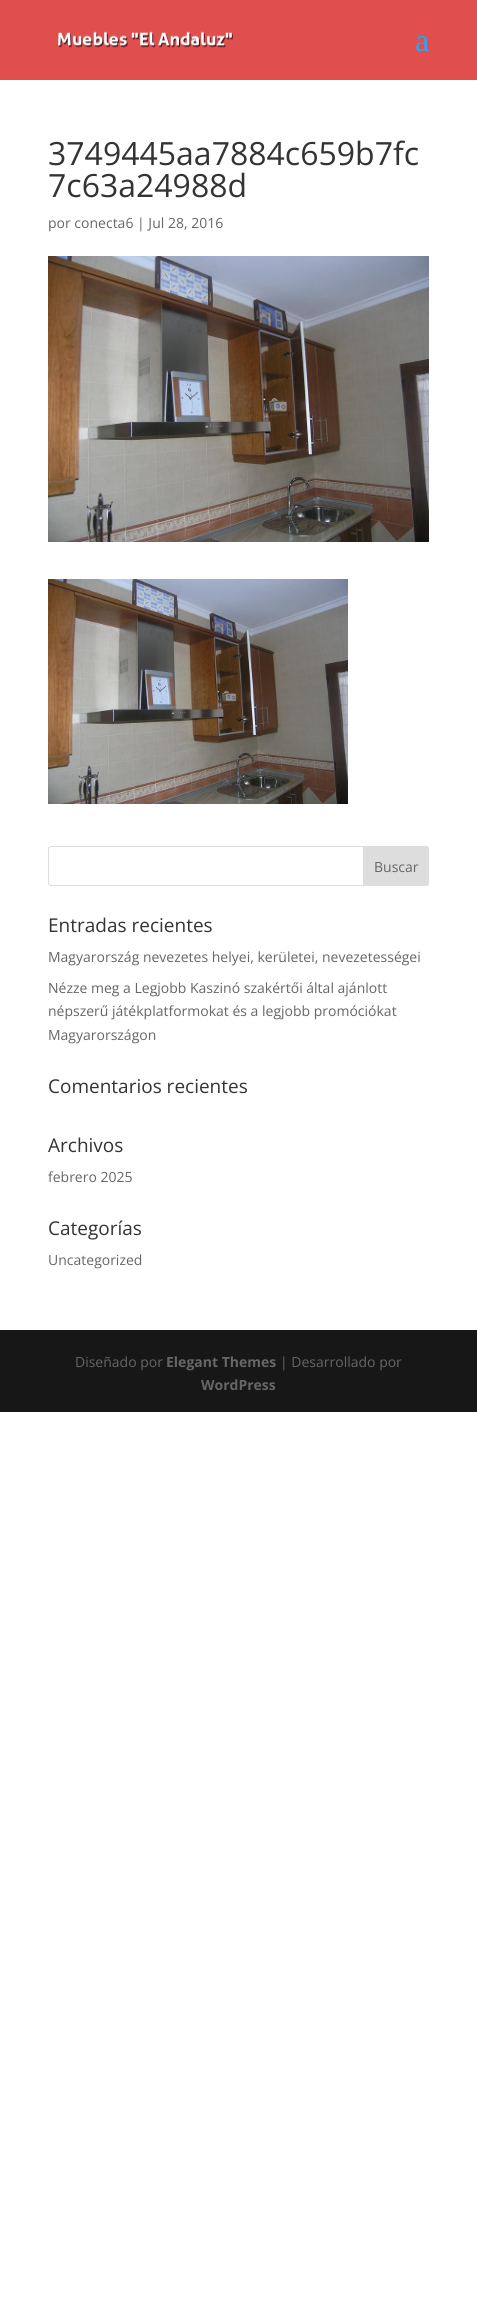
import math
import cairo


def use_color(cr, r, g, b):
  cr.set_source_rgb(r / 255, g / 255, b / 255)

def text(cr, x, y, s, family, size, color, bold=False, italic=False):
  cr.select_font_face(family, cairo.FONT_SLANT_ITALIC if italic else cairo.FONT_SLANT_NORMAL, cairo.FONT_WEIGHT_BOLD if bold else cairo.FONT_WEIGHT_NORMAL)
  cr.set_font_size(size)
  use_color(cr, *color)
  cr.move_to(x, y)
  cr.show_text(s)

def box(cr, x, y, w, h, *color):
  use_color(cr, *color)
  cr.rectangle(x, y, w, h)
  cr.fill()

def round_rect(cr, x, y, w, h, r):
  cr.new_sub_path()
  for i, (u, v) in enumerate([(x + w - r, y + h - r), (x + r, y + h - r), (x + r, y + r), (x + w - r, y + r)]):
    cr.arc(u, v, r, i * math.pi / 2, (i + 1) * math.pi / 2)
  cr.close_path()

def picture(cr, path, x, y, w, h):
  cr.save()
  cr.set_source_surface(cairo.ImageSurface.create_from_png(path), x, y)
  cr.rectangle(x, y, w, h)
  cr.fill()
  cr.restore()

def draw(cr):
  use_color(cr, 255, 255, 255)
  cr.paint()
  box(cr, 0, 0, 477, 80, 225, 78, 78)
  picture(cr, "img_01.png", 58, 31, 175, 17)
  picture(cr, "img_02.png", 48, 256, 381, 286)
  picture(cr, "img_03.png", 48, 579, 300, 225)
  round_rect(cr, 48.5, 846.5, 380, 39, 2.5)
  use_color(cr, 221, 221, 221)
  cr.set_line_width(1)
  cr.stroke()
  cr.new_path()
  cr.move_to(363.5, 846.5)
  cr.line_to(426, 846.5)
  cr.curve_to(427.5, 846.5, 428.5, 847.5, 428.5, 849)
  cr.line_to(428.5, 883)
  cr.curve_to(428.5, 884.5, 427.5, 885.5, 426, 885.5)
  cr.line_to(363.5, 885.5)
  cr.close_path()
  cr.fill_preserve()
  cr.stroke()
  box(cr, 0, 1330, 477, 82, 23, 23, 23)
  text(cr, 415, 51, "a", "Liberation Serif", 32, (46, 163, 242))
  text(cr, 48, 165, "3749445aa7884c659b7fc", "Open Sans", 32, (51, 51, 51))
  text(cr, 48, 197, "7c63a24988d", "Open Sans", 32, (51, 51, 51))
  text(cr, 48, 228, "por conecta6 | Jul 28, 2016", "Open Sans", 14, (102, 102, 102))
  text(cr, 374, 872, "Buscar", "Open Sans", 14, (102, 102, 102))
  text(cr, 48, 932, "Entradas recientes", "Open Sans", 19, (51, 51, 51))
  text(cr, 48, 962, "Magyarország nevezetes helyei, kerületei, nevezetességei", "Open Sans", 14, (102, 102, 102))
  text(cr, 48, 993, "Nézze meg a Legjobb Kaszinó szakértői által ajánlott", "Open Sans", 14, (102, 102, 102))
  text(cr, 48, 1016, "népszerű játékplatformokat és a legjobb promóciókat", "Open Sans", 14, (102, 102, 102))
  text(cr, 48, 1040, "Magyarországon", "Open Sans", 14, (102, 102, 102))
  text(cr, 48, 1093, "Comentarios recientes", "Open Sans", 19, (51, 51, 51))
  text(cr, 48, 1152, "Archivos", "Open Sans", 19, (51, 51, 51))
  text(cr, 48, 1182, "febrero 2025", "Open Sans", 14, (102, 102, 102))
  text(cr, 48, 1235, "Categorías", "Open Sans", 19, (51, 51, 51))
  text(cr, 48, 1265, "Uncategorized", "Open Sans", 14, (102, 102, 102))
  text(cr, 75, 1367, "Diseñado por", "Open Sans", 14, (102, 102, 102))
  text(cr, 166, 1367, "Elegant Themes", "Open Sans", 14, (102, 102, 102), bold=True)
  text(cr, 280, 1367, "| Desarrollado por", "Open Sans", 14, (102, 102, 102))
  text(cr, 201, 1390, "WordPress", "Open Sans", 14, (102, 102, 102), bold=True)


surface = cairo.ImageSurface(cairo.FORMAT_RGB24, 477, 2317)
cr = cairo.Context(surface)
options = cairo.FontOptions()
options.set_hint_metrics(cairo.HINT_METRICS_OFF)
options.set_hint_style(cairo.HINT_STYLE_NONE)
cr.set_font_options(options)
cr.set_miter_limit(4)
draw(cr)
surface.write_to_png("out.png")
